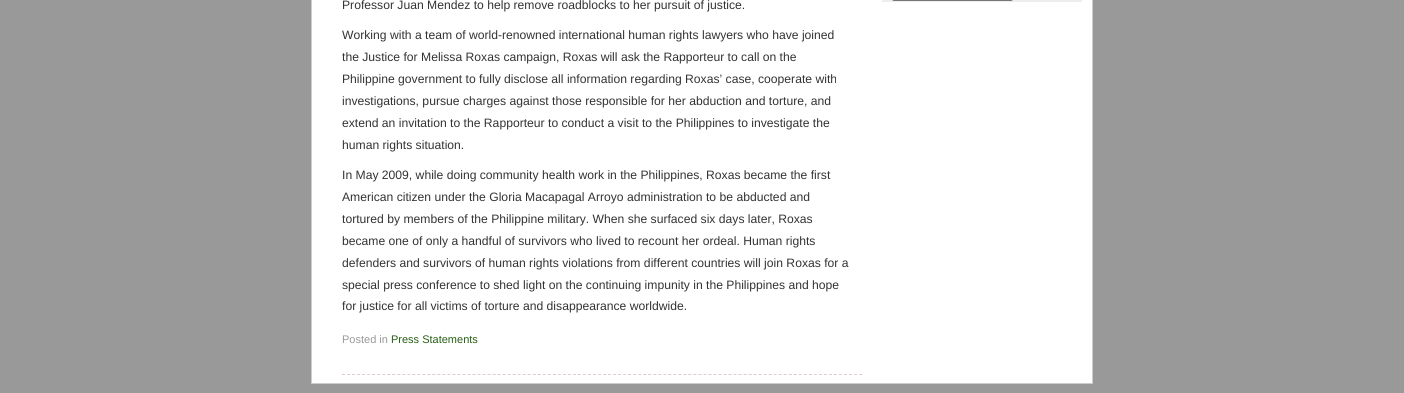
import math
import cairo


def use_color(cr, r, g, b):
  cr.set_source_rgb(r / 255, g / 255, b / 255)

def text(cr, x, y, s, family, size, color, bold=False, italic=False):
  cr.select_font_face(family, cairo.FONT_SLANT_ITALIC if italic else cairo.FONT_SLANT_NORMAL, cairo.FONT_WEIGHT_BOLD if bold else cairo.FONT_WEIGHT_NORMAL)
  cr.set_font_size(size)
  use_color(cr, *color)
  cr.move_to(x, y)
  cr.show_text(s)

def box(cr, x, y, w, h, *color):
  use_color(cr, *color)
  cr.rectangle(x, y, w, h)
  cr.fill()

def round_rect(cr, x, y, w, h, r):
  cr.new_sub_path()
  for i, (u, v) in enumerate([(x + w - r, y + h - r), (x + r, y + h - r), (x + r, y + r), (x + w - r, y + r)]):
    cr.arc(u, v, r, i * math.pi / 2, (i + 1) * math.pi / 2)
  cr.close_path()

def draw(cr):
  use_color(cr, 153, 153, 153)
  cr.paint()
  use_color(cr, 255, 255, 255)
  cr.rectangle(311.5, -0.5, 781, 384)
  cr.fill_preserve()
  use_color(cr, 204, 204, 204)
  cr.set_line_width(1)
  cr.stroke()
  box(cr, 882, 0, 200, 2, 237, 237, 237)
  round_rect(cr, 892.5, -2.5, 120, 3, 1.5)
  use_color(cr, 118, 118, 118)
  cr.stroke()
  cr.new_path()
  cr.move_to(342, 374.5)
  cr.line_to(862, 374.5)
  use_color(cr, 221, 204, 204)
  cr.set_dash([3, 2.02])
  cr.stroke()
  text(cr, 342, 9, "Professor Juan Mendez to help remove roadblocks to her pursuit of justice.", "Liberation Sans", 12.15, (51, 51, 51))
  text(cr, 342, 39, "Working with a team of world-renowned international human rights lawyers who have joined", "Liberation Sans", 12.15, (51, 51, 51))
  text(cr, 342, 61, "the Justice for Melissa Roxas campaign, Roxas will ask the Rapporteur to call on the", "Liberation Sans", 12.15, (51, 51, 51))
  text(cr, 342, 83, "Philippine government to fully disclose all information regarding Roxas’ case, cooperate with", "Liberation Sans", 12.15, (51, 51, 51))
  text(cr, 342, 105, "investigations, pursue charges against those responsible for her abduction and torture, and", "Liberation Sans", 12.15, (51, 51, 51))
  text(cr, 342, 127, "extend an invitation to the Rapporteur to conduct a visit to the Philippines to investigate the", "Liberation Sans", 12.15, (51, 51, 51))
  text(cr, 342, 149, "human rights situation.", "Liberation Sans", 12.15, (51, 51, 51))
  text(cr, 342, 179, "In May 2009, while doing community health work in the Philippines, Roxas became the first", "Liberation Sans", 12.15, (51, 51, 51))
  text(cr, 342, 201, "American citizen under the Gloria Macapagal Arroyo administration to be abducted and", "Liberation Sans", 12.15, (51, 51, 51))
  text(cr, 342, 223, "tortured by members of the Philippine military. When she surfaced six days later, Roxas", "Liberation Sans", 12.15, (51, 51, 51))
  text(cr, 342, 245, "became one of only a handful of survivors who lived to recount her ordeal. Human rights", "Liberation Sans", 12.15, (51, 51, 51))
  text(cr, 342, 267, "defenders and survivors of human rights violations from different countries will join Roxas for a", "Liberation Sans", 12.15, (51, 51, 51))
  text(cr, 342, 289, "special press conference to shed light on the continuing impunity in the Philippines and hope", "Liberation Sans", 12.15, (51, 51, 51))
  text(cr, 342, 310, "for justice for all victims of torture and disappearance worldwide.", "Liberation Sans", 12.15, (51, 51, 51))
  text(cr, 342, 343, "Posted in", "Liberation Sans", 11, (153, 153, 153))
  text(cr, 391, 343, "Press Statements", "Liberation Sans", 11, (38, 94, 21))


surface = cairo.ImageSurface(cairo.FORMAT_RGB24, 1404, 393)
cr = cairo.Context(surface)
options = cairo.FontOptions()
options.set_hint_metrics(cairo.HINT_METRICS_OFF)
options.set_hint_style(cairo.HINT_STYLE_NONE)
cr.set_font_options(options)
cr.set_miter_limit(4)
draw(cr)
surface.write_to_png("out.png")
